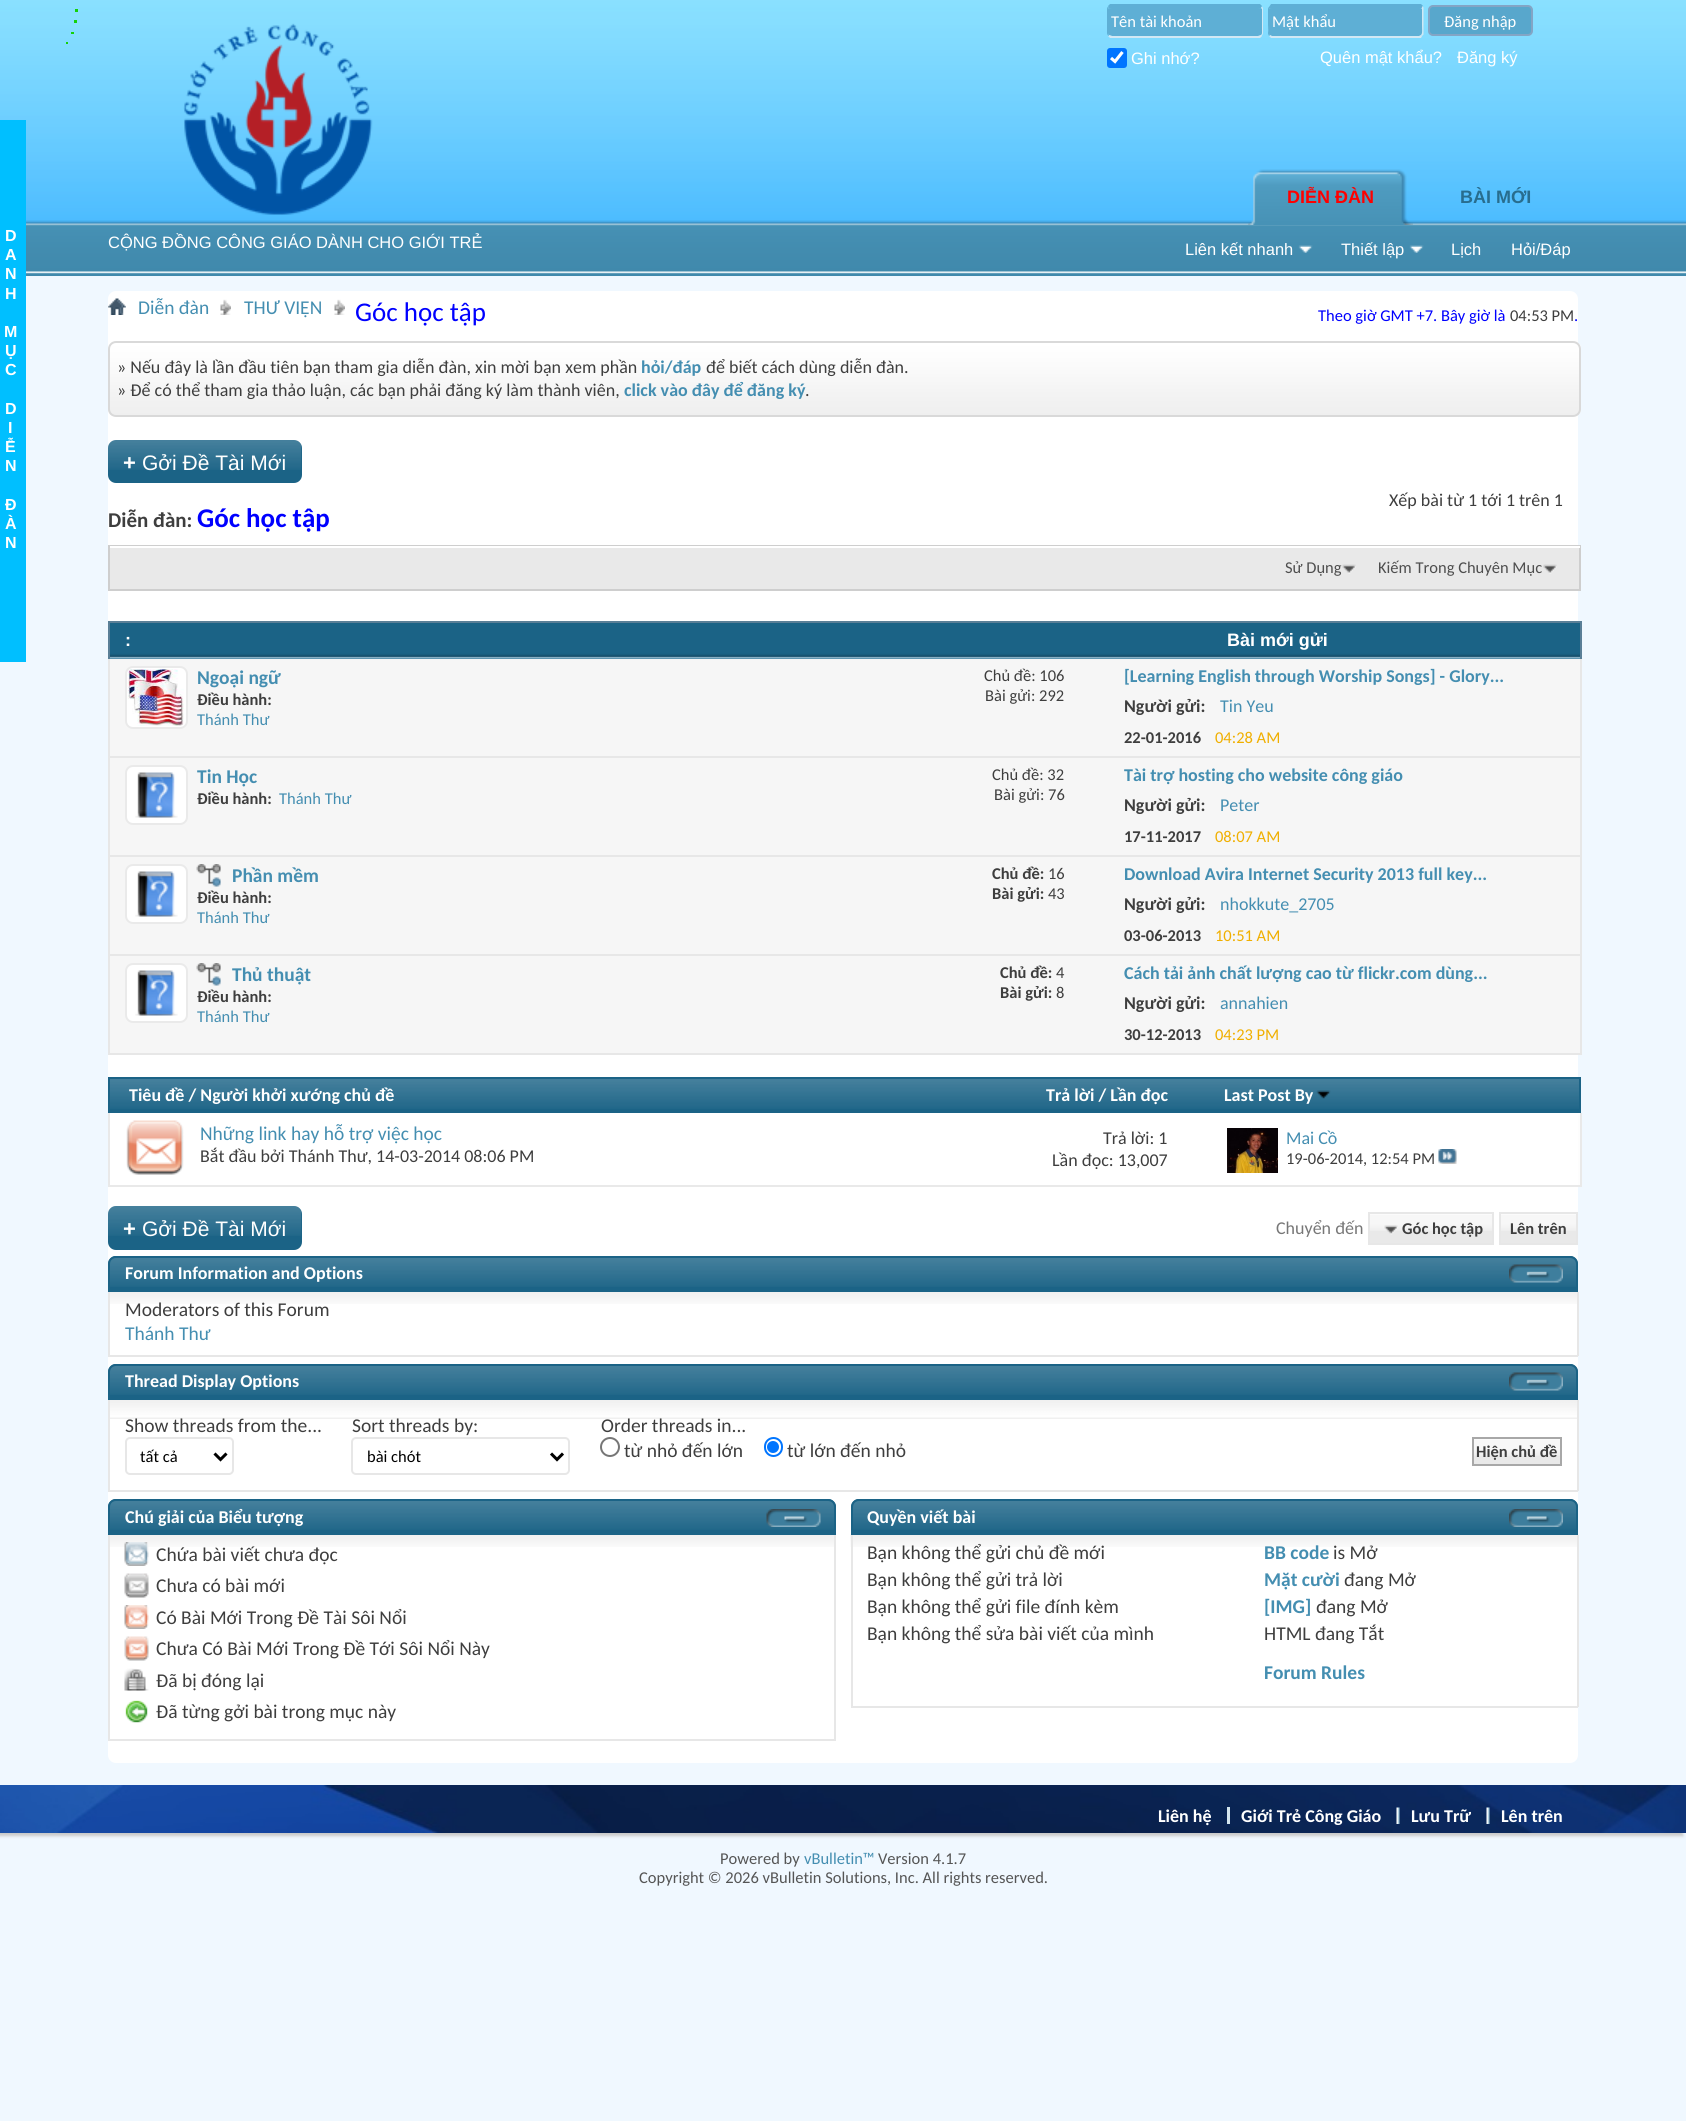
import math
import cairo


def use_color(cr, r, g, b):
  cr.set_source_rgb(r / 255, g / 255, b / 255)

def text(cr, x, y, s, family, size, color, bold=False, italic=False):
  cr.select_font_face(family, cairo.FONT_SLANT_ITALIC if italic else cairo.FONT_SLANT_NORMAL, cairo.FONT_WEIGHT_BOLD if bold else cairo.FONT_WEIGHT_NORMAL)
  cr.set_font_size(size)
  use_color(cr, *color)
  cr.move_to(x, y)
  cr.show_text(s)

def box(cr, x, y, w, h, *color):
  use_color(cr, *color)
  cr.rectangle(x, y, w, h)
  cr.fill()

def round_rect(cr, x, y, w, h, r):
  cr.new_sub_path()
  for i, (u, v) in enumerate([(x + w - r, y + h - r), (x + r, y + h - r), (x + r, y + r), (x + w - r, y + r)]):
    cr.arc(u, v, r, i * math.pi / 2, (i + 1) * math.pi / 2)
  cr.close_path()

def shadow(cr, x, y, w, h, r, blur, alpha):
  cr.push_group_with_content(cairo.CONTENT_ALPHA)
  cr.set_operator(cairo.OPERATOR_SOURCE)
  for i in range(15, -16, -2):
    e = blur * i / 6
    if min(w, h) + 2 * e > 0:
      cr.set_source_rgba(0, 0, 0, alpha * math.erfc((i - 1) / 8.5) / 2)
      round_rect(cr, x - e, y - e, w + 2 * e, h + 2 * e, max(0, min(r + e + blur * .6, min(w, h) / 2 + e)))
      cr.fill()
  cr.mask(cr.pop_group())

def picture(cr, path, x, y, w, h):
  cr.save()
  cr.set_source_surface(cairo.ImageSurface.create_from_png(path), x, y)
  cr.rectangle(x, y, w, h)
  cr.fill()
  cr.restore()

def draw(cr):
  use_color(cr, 240, 248, 255)
  cr.paint()
  picture(cr, "img_01.png", 0, 0, 1686, 221)
  picture(cr, "img_02.png", 26, 220, 1660, 56)
  box(cr, 75, 9, 3, 3, 21, 209, 8)
  box(cr, 74, 20, 3, 3, 21, 209, 8)
  picture(cr, "img_03.png", 183, 23, 190, 192)
  use_color(cr, 94, 175, 213)
  cr.new_path()
  cr.move_to(1112, 8)
  cr.line_to(1258, 8)
  cr.curve_to(1260, 8, 1262, 8, 1262, 9)
  cr.line_to(1262, 33)
  cr.curve_to(1262, 35, 1260, 36, 1258, 36)
  cr.line_to(1112, 36)
  cr.curve_to(1110, 36, 1108, 35, 1108, 33)
  cr.line_to(1108, 9)
  cr.curve_to(1108, 8, 1110, 8, 1112, 8)
  cr.close_path()
  cr.fill()
  cr.new_path()
  cr.move_to(1112, 8)
  cr.line_to(1109, 8)
  cr.line_to(1108, 6)
  cr.line_to(1110, 4)
  cr.line_to(1260, 4)
  cr.line_to(1262, 6)
  cr.line_to(1261, 8)
  cr.line_to(1258, 8)
  cr.close_path()
  cr.fill()
  use_color(cr, 210, 232, 244)
  cr.new_path()
  cr.move_to(1263, 33)
  cr.line_to(1263, 9)
  cr.curve_to(1263, 8, 1262.5, 7, 1262, 6.5)
  cr.line_to(1261, 8)
  cr.curve_to(1261.5, 8.5, 1262, 8.5, 1262, 9)
  cr.line_to(1262, 33)
  cr.curve_to(1262, 34, 1261.5, 35, 1261, 35)
  cr.line_to(1261.5, 36)
  cr.curve_to(1262.5, 35, 1263, 34, 1263, 33)
  cr.close_path()
  cr.fill()
  cr.new_path()
  cr.move_to(1110, 38)
  cr.line_to(1108, 36)
  cr.line_to(1109, 35)
  cr.line_to(1112, 36)
  cr.line_to(1161, 36)
  cr.line_to(1258, 36)
  cr.line_to(1261, 35)
  cr.line_to(1262, 36)
  cr.line_to(1260, 38)
  cr.close_path()
  cr.fill()
  use_color(cr, 94, 175, 213)
  cr.new_path()
  cr.move_to(1107, 9)
  cr.line_to(1107, 33)
  cr.curve_to(1107, 34, 1107.5, 35, 1108.5, 36)
  cr.line_to(1109, 35)
  cr.curve_to(1108.5, 35, 1108, 34, 1108, 33)
  cr.line_to(1108, 9)
  cr.curve_to(1108, 8.5, 1108.5, 8.5, 1109, 8)
  cr.line_to(1108, 6.5)
  cr.curve_to(1107.5, 7, 1107, 8, 1107, 9)
  cr.close_path()
  cr.fill()
  cr.new_path()
  cr.move_to(1272, 8)
  cr.line_to(1419, 8)
  cr.curve_to(1421, 8, 1422, 8, 1422, 9)
  cr.line_to(1422, 33)
  cr.curve_to(1422, 35, 1421, 36, 1419, 36)
  cr.line_to(1272, 36)
  cr.curve_to(1270, 36, 1269, 35, 1269, 33)
  cr.line_to(1269, 9)
  cr.curve_to(1269, 8, 1270, 8, 1272, 8)
  cr.close_path()
  cr.fill()
  cr.new_path()
  cr.move_to(1272, 8)
  cr.line_to(1269, 8)
  cr.line_to(1269, 7)
  cr.line_to(1271, 4)
  cr.line_to(1421, 4)
  cr.line_to(1423, 6)
  cr.line_to(1422, 8)
  cr.line_to(1419, 8)
  cr.close_path()
  cr.fill()
  use_color(cr, 210, 232, 244)
  cr.new_path()
  cr.move_to(1423.5, 34.5)
  cr.line_to(1422, 36)
  cr.line_to(1421, 35)
  cr.curve_to(1423, 33.5, 1422, 26.5, 1422, 25)
  cr.line_to(1422, 9)
  cr.line_to(1421.5, 8.5)
  cr.line_to(1422.5, 6)
  cr.line_to(1423.5, 7.5)
  cr.close_path()
  cr.fill()
  cr.new_path()
  cr.move_to(1271, 38)
  cr.line_to(1269, 36)
  cr.line_to(1270, 35)
  cr.line_to(1272, 36)
  cr.line_to(1419, 36)
  cr.line_to(1421, 35)
  cr.line_to(1422, 36)
  cr.line_to(1421, 38)
  cr.close_path()
  cr.fill()
  use_color(cr, 94, 175, 213)
  cr.new_path()
  cr.move_to(1269, 36)
  cr.curve_to(1268.5, 35, 1268, 34, 1268, 33)
  cr.line_to(1268, 9)
  cr.line_to(1268.5, 7)
  cr.line_to(1269.5, 8.5)
  cr.line_to(1269, 9)
  cr.line_to(1269, 25)
  cr.curve_to(1269, 26.5, 1268, 33.5, 1270, 35)
  cr.close_path()
  cr.fill()
  use_color(cr, 88, 167, 204)
  round_rect(cr, 1429, 6, 103, 29, 4)
  cr.fill_preserve()
  use_color(cr, 131, 165, 197)
  cr.stroke()
  use_color(cr, 0, 117, 255)
  round_rect(cr, 1107, 48, 20, 20, 3)
  cr.fill()
  cr.new_path()
  cr.move_to(1111, 58)
  cr.line_to(1115, 61.5)
  cr.line_to(1122.5, 52)
  use_color(cr, 255, 255, 255)
  cr.set_line_width(3.1)
  cr.stroke()
  box(cr, 71, 32, 3, 2, 21, 209, 8)
  box(cr, 66, 42, 2, 2, 21, 209, 8)
  picture(cr, "img_04.png", 1248, 169, 165, 56)
  picture(cr, "img_05.png", 1298, 245, 15, 8)
  picture(cr, "img_06.png", 1409, 245, 15, 8)
  box(cr, 0, 120, 26, 542, 0, 191, 255)
  use_color(cr, 255, 255, 255)
  round_rect(cr, 108, 291, 1470, 1472, 8)
  cr.fill()
  picture(cr, "img_07.png", 108, 298, 18, 17)
  picture(cr, "img_08.png", 220, 299, 11, 16)
  picture(cr, "img_08.png", 334, 299, 11, 16)
  round_rect(cr, 108, 341, 1473, 76, 8)
  cr.fill()
  picture(cr, "img_09.png", 108, 344, 1473, 72)
  round_rect(cr, 109, 342, 1471, 74, 7)
  use_color(cr, 217, 217, 217)
  cr.set_line_width(2)
  cr.stroke()
  use_color(cr, 27, 99, 134)
  round_rect(cr, 108, 440, 194, 43, 8)
  cr.fill()
  picture(cr, "img_10.png", 108, 440, 194, 30)
  box(cr, 110, 548, 1469, 41, 233, 233, 233)
  cr.rectangle(109, 546, 1471, 44)
  use_color(cr, 206, 206, 206)
  cr.stroke()
  box(cr, 110, 546, 1470, 2, 255, 255, 255)
  picture(cr, "img_11.png", 1342, 564, 14, 10)
  picture(cr, "img_12.png", 1543, 564, 14, 10)
  box(cr, 110, 658, 1470, 1, 27, 99, 134)
  picture(cr, "img_13.png", 110, 623, 1470, 36)
  box(cr, 108, 621, 1473, 2, 90, 127, 151)
  box(cr, 1580, 621, 2, 38, 90, 127, 151)
  box(cr, 108, 621, 2, 38, 90, 127, 151)
  box(cr, 110, 659, 1470, 97, 246, 246, 246)
  box(cr, 1580, 659, 2, 396, 231, 231, 231)
  box(cr, 108, 756, 1473, 2, 231, 231, 231)
  box(cr, 108, 659, 2, 99, 231, 231, 231)
  use_color(cr, 255, 255, 255)
  round_rect(cr, 126, 667, 61, 61, 7)
  cr.fill_preserve()
  use_color(cr, 234, 234, 234)
  cr.stroke()
  picture(cr, "img_14.png", 127, 669, 57, 57)
  box(cr, 110, 758, 1470, 97, 246, 246, 246)
  box(cr, 108, 855, 1473, 2, 231, 231, 231)
  box(cr, 108, 758, 2, 99, 231, 231, 231)
  use_color(cr, 255, 255, 255)
  round_rect(cr, 126, 766, 61, 58, 7)
  cr.fill_preserve()
  use_color(cr, 234, 234, 234)
  cr.stroke()
  picture(cr, "img_15.png", 135, 772, 43, 46)
  box(cr, 110, 857, 1470, 97, 246, 246, 246)
  box(cr, 108, 954, 1473, 2, 231, 231, 231)
  box(cr, 108, 857, 2, 99, 231, 231, 231)
  use_color(cr, 255, 255, 255)
  round_rect(cr, 126, 865, 61, 58, 7)
  cr.fill_preserve()
  use_color(cr, 234, 234, 234)
  cr.stroke()
  picture(cr, "img_15.png", 135, 871, 43, 46)
  picture(cr, "img_16.png", 196, 864, 25, 23)
  box(cr, 110, 956, 1470, 97, 246, 246, 246)
  box(cr, 108, 1053, 1473, 2, 231, 231, 231)
  box(cr, 108, 956, 2, 99, 231, 231, 231)
  use_color(cr, 255, 255, 255)
  round_rect(cr, 126, 964, 61, 58, 7)
  cr.fill_preserve()
  use_color(cr, 234, 234, 234)
  cr.stroke()
  picture(cr, "img_15.png", 135, 970, 43, 46)
  picture(cr, "img_16.png", 196, 963, 25, 23)
  box(cr, 110, 1079, 1469, 32, 27, 99, 134)
  picture(cr, "img_17.png", 110, 1079, 1469, 30)
  cr.rectangle(109, 1078, 1471, 34)
  cr.stroke()
  picture(cr, "img_18.png", 1316, 1090, 15, 9)
  box(cr, 1578, 1115, 2, 70, 253, 253, 253)
  box(cr, 1578, 1113, 3, 2, 255, 255, 255)
  box(cr, 1580, 1113, 2, 74, 233, 233, 233)
  box(cr, 108, 1185, 1473, 2, 233, 233, 233)
  box(cr, 108, 1113, 2, 74, 233, 233, 233)
  picture(cr, "img_19.png", 126, 1120, 58, 55)
  picture(cr, "img_20.png", 1227, 1128, 51, 45)
  picture(cr, "img_21.png", 1438, 1149, 19, 15)
  use_color(cr, 27, 99, 134)
  round_rect(cr, 108, 1206, 194, 44, 8)
  cr.fill()
  picture(cr, "img_22.png", 108, 1206, 194, 30)
  box(cr, 1370, 1214, 122, 29, 233, 233, 233)
  picture(cr, "img_23.png", 1370, 1214, 122, 17)
  box(cr, 1501, 1214, 75, 29, 233, 233, 233)
  picture(cr, "img_24.png", 1501, 1214, 75, 17)
  cr.rectangle(1369, 1213, 124, 31)
  use_color(cr, 231, 231, 231)
  cr.stroke()
  picture(cr, "img_25.png", 1384, 1225, 14, 10)
  cr.rectangle(1500, 1213, 77, 31)
  cr.stroke()
  use_color(cr, 27, 99, 134)
  cr.new_path()
  cr.move_to(116, 1256)
  cr.line_to(1570, 1256)
  cr.curve_to(1574.5, 1256, 1578, 1259.5, 1578, 1264)
  cr.line_to(1578, 1292)
  cr.line_to(108, 1292)
  cr.line_to(108, 1264)
  cr.curve_to(108, 1259.5, 111.5, 1256, 116, 1256)
  cr.close_path()
  cr.fill()
  picture(cr, "img_26.png", 108, 1257, 1470, 30)
  cr.new_path()
  cr.move_to(116, 1257)
  cr.line_to(1570, 1257)
  cr.curve_to(1574, 1257, 1577, 1260, 1577, 1264)
  cr.line_to(1577, 1291)
  cr.line_to(109, 1291)
  cr.line_to(109, 1264)
  cr.curve_to(109, 1260, 112, 1257, 116, 1257)
  cr.close_path()
  cr.stroke()
  picture(cr, "img_27.png", 1509, 1264, 54, 19)
  picture(cr, "img_28.png", 110, 1292, 1467, 12)
  box(cr, 1577, 1292, 2, 64, 231, 231, 231)
  box(cr, 108, 1355, 1470, 2, 231, 231, 231)
  box(cr, 108, 1292, 2, 64, 231, 231, 231)
  use_color(cr, 27, 99, 134)
  cr.new_path()
  cr.move_to(116, 1364)
  cr.line_to(1570, 1364)
  cr.curve_to(1574.5, 1364, 1578, 1367.5, 1578, 1372)
  cr.line_to(1578, 1400)
  cr.line_to(108, 1400)
  cr.line_to(108, 1372)
  cr.curve_to(108, 1367.5, 111.5, 1364, 116, 1364)
  cr.close_path()
  cr.fill()
  picture(cr, "img_26.png", 108, 1365, 1470, 30)
  cr.new_path()
  cr.move_to(116, 1365)
  cr.line_to(1570, 1365)
  cr.curve_to(1574, 1365, 1577, 1368, 1577, 1372)
  cr.line_to(1577, 1399)
  cr.line_to(109, 1399)
  cr.line_to(109, 1372)
  cr.curve_to(109, 1368, 112, 1365, 116, 1365)
  cr.close_path()
  cr.stroke()
  picture(cr, "img_27.png", 1509, 1372, 54, 19)
  picture(cr, "img_29.png", 110, 1400, 1467, 19)
  box(cr, 1577, 1400, 2, 91, 231, 231, 231)
  box(cr, 108, 1490, 1470, 2, 231, 231, 231)
  box(cr, 108, 1400, 2, 91, 231, 231, 231)
  round_rect(cr, 126, 1438, 107, 36, 4)
  cr.stroke()
  cr.new_path()
  cr.move_to(214.5, 1453.5)
  cr.line_to(220.5, 1459.5)
  cr.line_to(226.5, 1453.5)
  use_color(cr, 0, 0, 0)
  cr.set_line_width(3)
  cr.stroke()
  round_rect(cr, 352, 1438, 217, 36, 4)
  use_color(cr, 231, 231, 231)
  cr.set_line_width(2)
  cr.stroke()
  cr.new_path()
  cr.move_to(551, 1453.5)
  cr.line_to(557, 1459.5)
  cr.line_to(563, 1453.5)
  use_color(cr, 0, 0, 0)
  cr.set_line_width(3)
  cr.stroke()
  cr.arc(610, 1447, 9, 0, 2 * math.pi)
  use_color(cr, 118, 118, 118)
  cr.set_line_width(2)
  cr.stroke()
  round_rect(cr, 765, 1438, 17, 18, 8.5)
  use_color(cr, 0, 117, 255)
  cr.stroke()
  cr.arc(773, 1447, 6, 0, 2 * math.pi)
  cr.fill()
  box(cr, 1474, 1439, 86, 25, 233, 233, 233)
  picture(cr, "img_30.png", 1474, 1439, 86, 17)
  cr.rectangle(1473, 1438, 88, 27)
  use_color(cr, 168, 168, 168)
  cr.stroke()
  use_color(cr, 27, 99, 134)
  cr.new_path()
  cr.move_to(116, 1499)
  cr.line_to(828, 1499)
  cr.curve_to(832.5, 1499, 836, 1502.5, 836, 1507)
  cr.line_to(836, 1535)
  cr.line_to(108, 1535)
  cr.line_to(108, 1507)
  cr.curve_to(108, 1502.5, 111.5, 1499, 116, 1499)
  cr.close_path()
  cr.fill()
  picture(cr, "img_31.png", 108, 1500, 728, 30)
  cr.new_path()
  cr.move_to(116, 1500)
  cr.line_to(828, 1500)
  cr.curve_to(832, 1500, 835, 1503, 835, 1507)
  cr.line_to(835, 1534)
  cr.line_to(109, 1534)
  cr.line_to(109, 1507)
  cr.curve_to(109, 1503, 112, 1500, 116, 1500)
  cr.close_path()
  cr.stroke()
  picture(cr, "img_32.png", 766, 1509, 55, 18)
  picture(cr, "img_33.png", 110, 1535, 724, 12)
  box(cr, 834, 1535, 2, 205, 231, 231, 231)
  box(cr, 108, 1739, 728, 2, 231, 231, 231)
  box(cr, 108, 1535, 2, 205, 231, 231, 231)
  picture(cr, "img_34.png", 124, 1542, 25, 24)
  picture(cr, "img_35.png", 124, 1573, 25, 25)
  picture(cr, "img_36.png", 124, 1605, 25, 24)
  picture(cr, "img_37.png", 124, 1636, 25, 25)
  picture(cr, "img_38.png", 124, 1668, 25, 23)
  picture(cr, "img_39.png", 125, 1700, 23, 23)
  picture(cr, "img_42.png", 850, 1534, 727, 13)
  use_color(cr, 27, 99, 134)
  cr.new_path()
  cr.move_to(859, 1499)
  cr.line_to(1570, 1499)
  cr.curve_to(1574.5, 1499, 1578, 1502.5, 1578, 1507)
  cr.line_to(1578, 1535)
  cr.line_to(851, 1535)
  cr.line_to(851, 1507)
  cr.curve_to(851, 1502.5, 854.5, 1499, 859, 1499)
  cr.close_path()
  cr.fill()
  picture(cr, "img_40.png", 851, 1500, 727, 30)
  cr.new_path()
  cr.move_to(859, 1500)
  cr.line_to(1570, 1500)
  cr.curve_to(1574, 1500, 1577, 1503, 1577, 1507)
  cr.line_to(1577, 1534)
  cr.line_to(852, 1534)
  cr.line_to(852, 1507)
  cr.curve_to(852, 1503, 855, 1500, 859, 1500)
  cr.close_path()
  cr.stroke()
  picture(cr, "img_41.png", 1509, 1509, 54, 18)
  box(cr, 1577, 1535, 2, 172, 231, 231, 231)
  box(cr, 851, 1706, 727, 2, 231, 231, 231)
  box(cr, 851, 1535, 2, 172, 231, 231, 231)
  use_color(cr, 200, 200, 200)
  shadow(cr, -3, 1788, 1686, 48, 0, 1.5, 1)
  picture(cr, "img_43.png", 0, 1785, 1686, 48)
  box(cr, 1227, 1807, 3, 17, 211, 229, 237)
  picture(cr, "img_44.png", 1396, 1807, 4, 17)
  picture(cr, "img_45.png", 1486, 1807, 4, 17)
  text(cr, 1111, 27, "Tên tài khoản", "Carlito", 16.5, (255, 255, 255))
  text(cr, 1272, 27, "Mật khẩu", "Carlito", 16.5, (255, 255, 255))
  text(cr, 1444, 27, "Ðăng nhập", "Carlito", 16.5, (255, 255, 255))
  text(cr, 1131, 64, "Ghi nhớ?", "Liberation Sans", 16.5, (255, 255, 255))
  text(cr, 1320, 63, "Quên mật khẩu?", "Liberation Sans", 16.5, (255, 255, 255))
  text(cr, 1457, 63, "Đăng ký", "Liberation Sans", 16.5, (255, 255, 255))
  text(cr, 108, 248, "CỘNG ĐỒNG CÔNG GIÁO DÀNH CHO GIỚI TRẺ", "Liberation Sans", 16.5, (255, 255, 255))
  text(cr, 1287, 203, "DIỄN ĐÀN", "Liberation Sans", 18, (255, 0, 0), bold=True)
  text(cr, 1185, 255, "Liên kết nhanh", "Liberation Sans", 16.5, (255, 255, 255))
  text(cr, 1341, 255, "Thiết lập", "Liberation Sans", 16.5, (255, 255, 255))
  text(cr, 1451, 255, "Lịch", "Liberation Sans", 16.5, (255, 255, 255))
  text(cr, 1511, 255, "Hỏi/Ðáp", "Liberation Sans", 16.5, (255, 255, 255))
  text(cr, 1460, 203, "BÀI MỚI", "Liberation Sans", 18, (40, 109, 142), bold=True)
  text(cr, 5, 241, "D", "Liberation Sans", 16, (255, 255, 255), bold=True)
  text(cr, 5, 260, "A", "Liberation Sans", 16, (255, 255, 255), bold=True)
  text(cr, 5, 279, "N", "Liberation Sans", 16, (255, 255, 255), bold=True)
  text(cr, 5, 299, "H", "Liberation Sans", 16, (255, 255, 255), bold=True)
  text(cr, 4, 337, "M", "Liberation Sans", 16, (255, 255, 255), bold=True)
  text(cr, 5, 356, "Ụ", "Liberation Sans", 16, (255, 255, 255), bold=True)
  text(cr, 5, 375, "C", "Liberation Sans", 16, (255, 255, 255), bold=True)
  text(cr, 5, 414, "D", "Liberation Sans", 16, (255, 255, 255), bold=True)
  text(cr, 8, 433, "I", "Liberation Sans", 16, (255, 255, 255), bold=True)
  text(cr, 5, 452, "Ễ", "Liberation Sans", 16, (255, 255, 255), bold=True)
  text(cr, 5, 471, "N", "Liberation Sans", 16, (255, 255, 255), bold=True)
  text(cr, 5, 510, "Đ", "Liberation Sans", 16, (255, 255, 255), bold=True)
  text(cr, 5, 529, "À", "Liberation Sans", 16, (255, 255, 255), bold=True)
  text(cr, 5, 548, "N", "Liberation Sans", 16, (255, 255, 255), bold=True)
  text(cr, 138, 314, "Diễn đàn", "Carlito", 19.5, (68, 142, 177))
  text(cr, 244, 314, "THƯ VIỆN", "Carlito", 19.5, (68, 142, 177))
  text(cr, 355, 321, "Góc học tập", "Carlito", 27, (0, 0, 255))
  text(cr, 1318, 321, "Theo giờ GMT +7. Bây giờ là", "Carlito", 16.5, (0, 0, 255))
  text(cr, 1510, 321, "04:53 PM", "Carlito", 16.5, (62, 62, 62))
  text(cr, 1574, 321, ".", "Carlito", 16.5, (0, 0, 255))
  text(cr, 117, 373, "» Nếu đây là lần đầu tiên bạn tham gia diễn đàn, xin mời bạn xem phần", "Carlito", 18, (62, 62, 62))
  text(cr, 641, 373, "hỏi/đáp", "Carlito", 18, (68, 142, 177), bold=True)
  text(cr, 706, 373, "để biết cách dùng diễn đàn.", "Carlito", 18, (62, 62, 62))
  text(cr, 117, 396, "» Để có thể tham gia thảo luận, các bạn phải đăng ký làm thành viên,", "Carlito", 18, (62, 62, 62))
  text(cr, 624, 396, "click vào đây để đăng ký", "Carlito", 18, (68, 142, 177), bold=True)
  text(cr, 805, 396, ".", "Carlito", 18, (62, 62, 62))
  text(cr, 123, 470, "+", "Liberation Sans", 22, (255, 255, 255), bold=True)
  text(cr, 142, 470, "Gởi Ðề Tài Mới", "Liberation Sans", 21, (255, 255, 255))
  text(cr, 1389, 506, "Xếp bài từ 1 tới 1 trên 1", "Carlito", 18, (62, 62, 62))
  text(cr, 108, 527, "Diễn đàn:", "Carlito", 21, (62, 62, 62), bold=True)
  text(cr, 197, 527, "Góc học tập", "Carlito", 27, (0, 0, 255), bold=True)
  text(cr, 1285, 573, "Sử Dụng", "Carlito", 16.5, (78, 78, 78))
  text(cr, 1378, 573, "Kiếm Trong Chuyên Mục", "Carlito", 16.5, (78, 78, 78))
  text(cr, 125, 646, ":", "Liberation Sans", 18, (255, 255, 255), bold=True)
  text(cr, 1227, 646, "Bài mới gửi", "Liberation Sans", 18, (255, 255, 255), bold=True)
  text(cr, 197, 684, "Ngoại ngữ", "Carlito", 19.5, (68, 142, 177), bold=True)
  text(cr, 197, 705, "Điều hành:", "Carlito", 16.5, (62, 62, 62), bold=True)
  text(cr, 197, 725, "Thánh Thư", "Carlito", 16.5, (68, 142, 177))
  text(cr, 984, 681, "Chủ đề: 106", "Carlito", 16.5, (62, 62, 62))
  text(cr, 985, 701, "Bài gửi: 292", "Carlito", 16.5, (62, 62, 62))
  text(cr, 1124, 682, "[Learning English through Worship Songs] - Glory...", "Carlito", 18, (68, 142, 177), bold=True)
  text(cr, 1124, 712, "Người gửi:", "Carlito", 18, (62, 62, 62), bold=True)
  text(cr, 1220, 712, "Tin Yeu", "Carlito", 18, (68, 142, 177))
  text(cr, 1124, 743, "22-01-2016", "Carlito", 16.5, (62, 62, 62), bold=True)
  text(cr, 1215, 743, "04:28 AM", "Carlito", 16.5, (240, 175, 0))
  text(cr, 197, 783, "Tin Học", "Carlito", 19.5, (68, 142, 177), bold=True)
  text(cr, 197, 804, "Điều hành:", "Carlito", 16.5, (62, 62, 62), bold=True)
  text(cr, 279, 804, "Thánh Thư", "Carlito", 16.5, (68, 142, 177))
  text(cr, 992, 780, "Chủ đề: 32", "Carlito", 16.5, (62, 62, 62))
  text(cr, 994, 800, "Bài gửi: 76", "Carlito", 16.5, (62, 62, 62))
  text(cr, 1124, 781, "Tài trợ hosting cho website công giáo", "Carlito", 18, (68, 142, 177), bold=True)
  text(cr, 1124, 811, "Người gửi:", "Carlito", 18, (62, 62, 62), bold=True)
  text(cr, 1220, 811, "Peter", "Carlito", 18, (68, 142, 177))
  text(cr, 1124, 842, "17-11-2017", "Carlito", 16.5, (62, 62, 62), bold=True)
  text(cr, 1215, 842, "08:07 AM", "Carlito", 16.5, (240, 175, 0))
  text(cr, 232, 882, "Phần mềm", "Carlito", 19.5, (68, 142, 177), bold=True)
  text(cr, 197, 903, "Điều hành:", "Carlito", 16.5, (62, 62, 62), bold=True)
  text(cr, 197, 923, "Thánh Thư", "Carlito", 16.5, (68, 142, 177))
  text(cr, 992, 879, "Chủ đề:", "Carlito", 16.5, (62, 62, 62), bold=True)
  text(cr, 1048, 879, "16", "Carlito", 16.5, (62, 62, 62))
  text(cr, 992, 899, "Bài gửi:", "Carlito", 16.5, (62, 62, 62), bold=True)
  text(cr, 1048, 899, "43", "Carlito", 16.5, (62, 62, 62))
  text(cr, 1124, 880, "Download Avira Internet Security 2013 full key...", "Carlito", 18, (68, 142, 177), bold=True)
  text(cr, 1124, 910, "Người gửi:", "Carlito", 18, (62, 62, 62), bold=True)
  text(cr, 1220, 910, "nhokkute_2705", "Carlito", 18, (68, 142, 177))
  text(cr, 1124, 941, "03-06-2013", "Carlito", 16.5, (62, 62, 62), bold=True)
  text(cr, 1215, 941, "10:51 AM", "Carlito", 16.5, (240, 175, 0))
  text(cr, 232, 981, "Thủ thuật", "Carlito", 19.5, (68, 142, 177), bold=True)
  text(cr, 197, 1002, "Điều hành:", "Carlito", 16.5, (62, 62, 62), bold=True)
  text(cr, 197, 1022, "Thánh Thư", "Carlito", 16.5, (68, 142, 177))
  text(cr, 1000, 978, "Chủ đề:", "Carlito", 16.5, (62, 62, 62), bold=True)
  text(cr, 1056, 978, "4", "Carlito", 16.5, (62, 62, 62))
  text(cr, 1000, 998, "Bài gửi:", "Carlito", 16.5, (62, 62, 62), bold=True)
  text(cr, 1056, 998, "8", "Carlito", 16.5, (62, 62, 62))
  text(cr, 1124, 979, "Cách tải ảnh chất lượng cao từ flickr.com dùng...", "Carlito", 18, (68, 142, 177), bold=True)
  text(cr, 1124, 1009, "Người gửi:", "Carlito", 18, (62, 62, 62), bold=True)
  text(cr, 1220, 1009, "annahien", "Carlito", 18, (68, 142, 177))
  text(cr, 1124, 1040, "30-12-2013", "Carlito", 16.5, (62, 62, 62), bold=True)
  text(cr, 1215, 1040, "04:23 PM", "Carlito", 16.5, (240, 175, 0))
  text(cr, 129, 1101, "Tiêu đề / Người khởi xướng chủ đề", "Carlito", 18, (255, 255, 255), bold=True)
  text(cr, 1046, 1101, "Trả lời / Lần đọc", "Carlito", 18, (255, 255, 255), bold=True)
  text(cr, 1224, 1101, "Last Post By", "Carlito", 18, (255, 255, 255), bold=True)
  text(cr, 200, 1140, "Những link hay hỗ trợ việc học", "Carlito", 19.5, (68, 142, 177))
  text(cr, 200, 1162, "Bắt đầu bởi Thánh Thư, 14-03-2014 08:06 PM", "Carlito", 18, (62, 62, 62))
  text(cr, 1103, 1144, "Trả lời: 1", "Carlito", 18, (62, 62, 62))
  text(cr, 1052, 1166, "Lần đọc: 13,007", "Carlito", 18, (62, 62, 62))
  text(cr, 1286, 1144, "Mai Cồ", "Carlito", 18, (68, 142, 177))
  text(cr, 1286, 1164, "19-06-2014, 12:54 PM", "Carlito", 16.5, (62, 62, 62))
  text(cr, 123, 1236, "+", "Liberation Sans", 22, (255, 255, 255), bold=True)
  text(cr, 142, 1236, "Gởi Ðề Tài Mới", "Liberation Sans", 21, (255, 255, 255))
  text(cr, 1276, 1234, "Chuyển đến", "Carlito", 18, (119, 119, 119))
  text(cr, 1402, 1234, "Góc học tập", "Carlito", 16.5, (62, 62, 62), bold=True)
  text(cr, 1510, 1234, "Lên trên", "Carlito", 16.5, (62, 62, 62), bold=True)
  text(cr, 125, 1279, "Forum Information and Options", "Carlito", 18, (255, 255, 255), bold=True)
  text(cr, 125, 1316, "Moderators of this Forum", "Carlito", 19.5, (62, 62, 62))
  text(cr, 125, 1340, "Thánh Thư", "Carlito", 19.5, (68, 142, 177))
  text(cr, 125, 1387, "Thread Display Options", "Carlito", 18, (255, 255, 255), bold=True)
  text(cr, 125, 1432, "Show threads from the...", "Carlito", 19.5, (62, 62, 62))
  text(cr, 140, 1462, "tất cả", "Carlito", 16.5, (0, 0, 0))
  text(cr, 352, 1432, "Sort threads by:", "Carlito", 19.5, (62, 62, 62))
  text(cr, 367, 1462, "bài chót", "Carlito", 16.5, (0, 0, 0))
  text(cr, 601, 1432, "Order threads in...", "Carlito", 19.5, (62, 62, 62))
  text(cr, 624, 1457, "từ nhỏ đến lớn", "Carlito", 19.5, (62, 62, 62))
  text(cr, 787, 1457, "từ lớn đến nhỏ", "Carlito", 19.5, (62, 62, 62))
  text(cr, 1476, 1457, "Hiện chủ đề", "Carlito", 16.5, (62, 62, 62), bold=True)
  text(cr, 125, 1523, "Chú giải của Biểu tượng", "Carlito", 18, (255, 255, 255), bold=True)
  text(cr, 156, 1561, "Chứa bài viết chưa đọc", "Carlito", 19.5, (62, 62, 62))
  text(cr, 156, 1592, "Chưa có bài mới", "Carlito", 19.5, (62, 62, 62))
  text(cr, 156, 1624, "Có Bài Mới Trong Ðề Tài Sôi Nổi", "Carlito", 19.5, (62, 62, 62))
  text(cr, 156, 1655, "Chưa Có Bài Mới Trong Ðề Tới Sôi Nổi Này", "Carlito", 19.5, (62, 62, 62))
  text(cr, 156, 1687, "Ðã bị đóng lại", "Carlito", 19.5, (62, 62, 62))
  text(cr, 156, 1718, "Ðã từng gởi bài trong mục này", "Carlito", 19.5, (62, 62, 62))
  text(cr, 867, 1523, "Quyền viết bài", "Carlito", 18, (255, 255, 255), bold=True)
  text(cr, 867, 1559, "Bạn không thể gửi chủ đề mới", "Carlito", 19.5, (62, 62, 62))
  text(cr, 867, 1586, "Bạn không thể gửi trả lời", "Carlito", 19.5, (62, 62, 62))
  text(cr, 867, 1613, "Bạn không thể gửi file đính kèm", "Carlito", 19.5, (62, 62, 62))
  text(cr, 867, 1640, "Bạn không thể sửa bài viết của mình", "Carlito", 19.5, (62, 62, 62))
  text(cr, 1264, 1559, "BB code", "Carlito", 19.5, (68, 142, 177), bold=True)
  text(cr, 1333, 1559, "is Mở", "Carlito", 19.5, (62, 62, 62))
  text(cr, 1264, 1586, "Mặt cười", "Carlito", 19.5, (68, 142, 177), bold=True)
  text(cr, 1344, 1586, "đang Mở", "Carlito", 19.5, (62, 62, 62))
  text(cr, 1264, 1613, "[IMG]", "Carlito", 19.5, (68, 142, 177), bold=True)
  text(cr, 1316, 1613, "đang Mở", "Carlito", 19.5, (62, 62, 62))
  text(cr, 1264, 1640, "HTML đang Tắt", "Carlito", 19.5, (62, 62, 62))
  text(cr, 1264, 1679, "Forum Rules", "Carlito", 19.5, (68, 142, 177), bold=True)
  text(cr, 1158, 1822, "Liên hệ", "Carlito", 18, (255, 255, 255), bold=True)
  text(cr, 1241, 1822, "Giới Trẻ Công Giáo", "Carlito", 18, (255, 255, 255), bold=True)
  text(cr, 1411, 1822, "Lưu Trữ", "Carlito", 18, (255, 255, 255), bold=True)
  text(cr, 1501, 1822, "Lên trên", "Carlito", 18, (255, 255, 255), bold=True)
  text(cr, 720, 1864, "Powered by", "Carlito", 16.5, (85, 85, 85))
  text(cr, 804, 1864, "vBulletin™", "Carlito", 16.5, (68, 142, 177))
  text(cr, 878, 1864, "Version 4.1.7", "Carlito", 16.5, (85, 85, 85))
  text(cr, 639, 1883, "Copyright © 2026 vBulletin Solutions, Inc. All rights reserved.", "Carlito", 16.5, (85, 85, 85))


surface = cairo.ImageSurface(cairo.FORMAT_RGB24, 1686, 2121)
cr = cairo.Context(surface)
options = cairo.FontOptions()
options.set_hint_metrics(cairo.HINT_METRICS_OFF)
options.set_hint_style(cairo.HINT_STYLE_NONE)
cr.set_font_options(options)
cr.set_miter_limit(4)
draw(cr)
surface.write_to_png("out.png")
